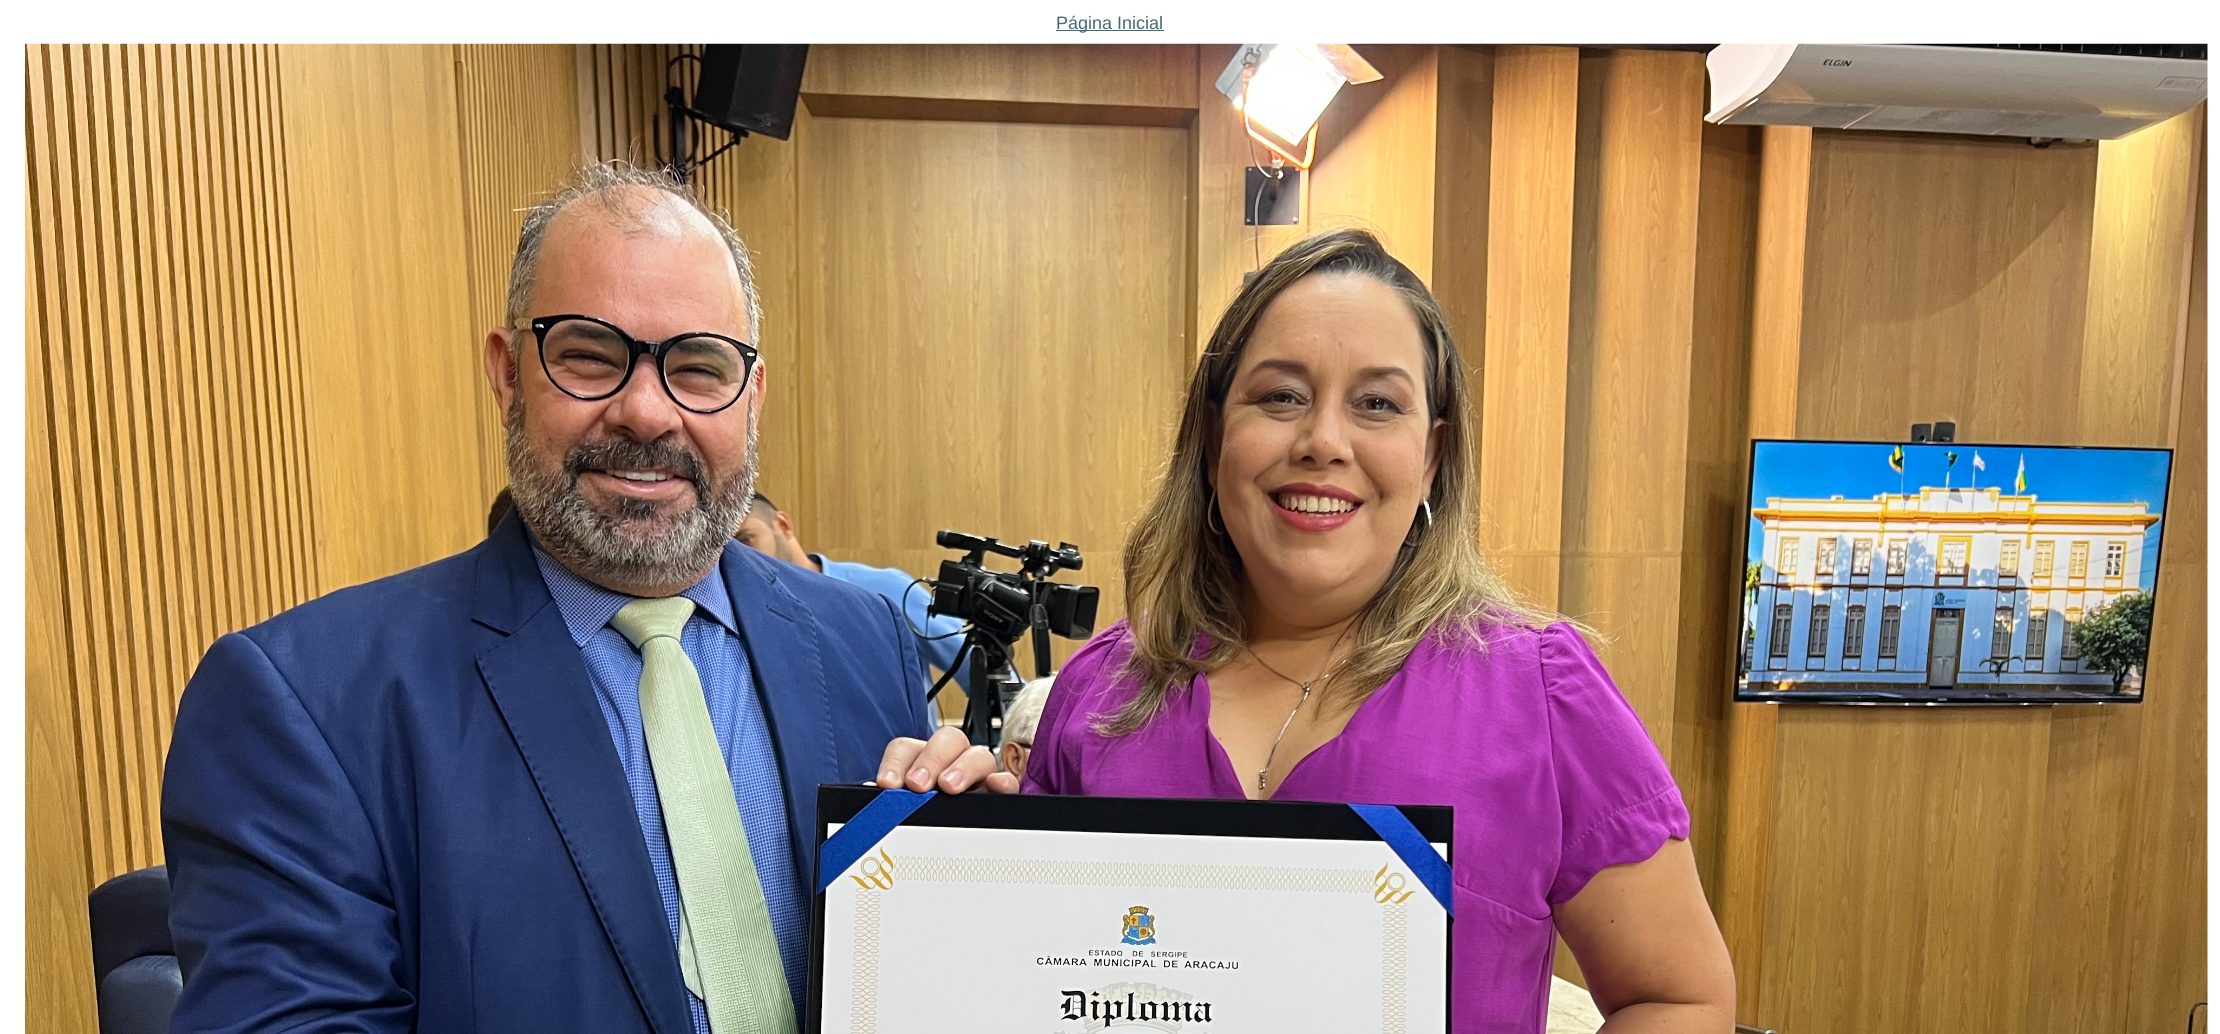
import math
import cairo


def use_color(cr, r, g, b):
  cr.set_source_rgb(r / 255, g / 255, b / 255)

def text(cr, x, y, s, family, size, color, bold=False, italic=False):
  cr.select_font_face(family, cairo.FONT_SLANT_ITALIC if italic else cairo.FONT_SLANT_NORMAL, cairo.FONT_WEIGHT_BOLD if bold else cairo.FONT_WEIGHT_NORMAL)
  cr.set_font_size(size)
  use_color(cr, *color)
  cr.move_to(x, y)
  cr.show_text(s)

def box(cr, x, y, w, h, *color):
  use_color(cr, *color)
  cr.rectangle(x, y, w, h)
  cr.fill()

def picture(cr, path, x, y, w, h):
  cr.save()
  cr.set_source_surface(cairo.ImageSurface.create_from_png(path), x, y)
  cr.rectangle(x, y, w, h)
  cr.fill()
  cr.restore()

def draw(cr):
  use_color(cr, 255, 255, 255)
  cr.paint()
  box(cr, 1056, 30, 108, 1, 67, 105, 118)
  picture(cr, "img_01.png", 25, 43, 2183, 991)
  text(cr, 1056, 29, "Página Inicial", "Liberation Sans", 18, (67, 105, 118))


surface = cairo.ImageSurface(cairo.FORMAT_RGB24, 2220, 1034)
cr = cairo.Context(surface)
options = cairo.FontOptions()
options.set_hint_metrics(cairo.HINT_METRICS_OFF)
options.set_hint_style(cairo.HINT_STYLE_NONE)
cr.set_font_options(options)
cr.set_miter_limit(4)
draw(cr)
surface.write_to_png("out.png")
